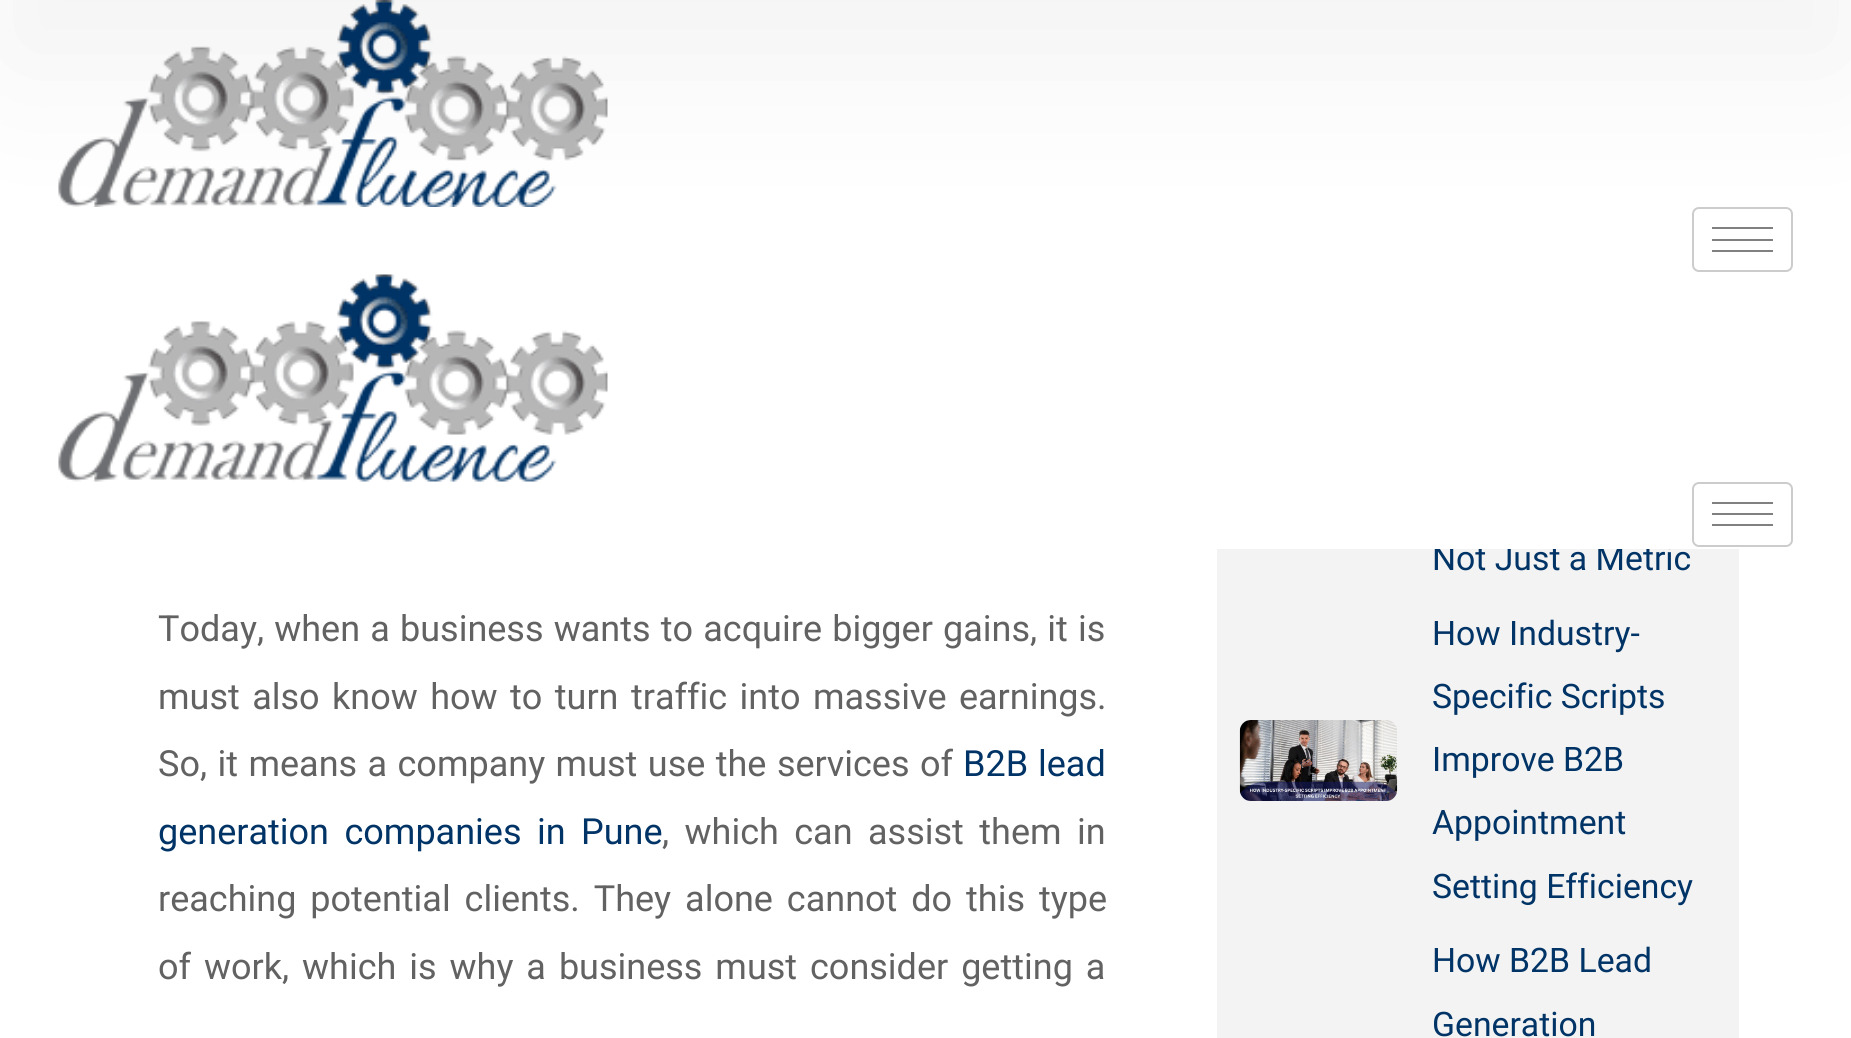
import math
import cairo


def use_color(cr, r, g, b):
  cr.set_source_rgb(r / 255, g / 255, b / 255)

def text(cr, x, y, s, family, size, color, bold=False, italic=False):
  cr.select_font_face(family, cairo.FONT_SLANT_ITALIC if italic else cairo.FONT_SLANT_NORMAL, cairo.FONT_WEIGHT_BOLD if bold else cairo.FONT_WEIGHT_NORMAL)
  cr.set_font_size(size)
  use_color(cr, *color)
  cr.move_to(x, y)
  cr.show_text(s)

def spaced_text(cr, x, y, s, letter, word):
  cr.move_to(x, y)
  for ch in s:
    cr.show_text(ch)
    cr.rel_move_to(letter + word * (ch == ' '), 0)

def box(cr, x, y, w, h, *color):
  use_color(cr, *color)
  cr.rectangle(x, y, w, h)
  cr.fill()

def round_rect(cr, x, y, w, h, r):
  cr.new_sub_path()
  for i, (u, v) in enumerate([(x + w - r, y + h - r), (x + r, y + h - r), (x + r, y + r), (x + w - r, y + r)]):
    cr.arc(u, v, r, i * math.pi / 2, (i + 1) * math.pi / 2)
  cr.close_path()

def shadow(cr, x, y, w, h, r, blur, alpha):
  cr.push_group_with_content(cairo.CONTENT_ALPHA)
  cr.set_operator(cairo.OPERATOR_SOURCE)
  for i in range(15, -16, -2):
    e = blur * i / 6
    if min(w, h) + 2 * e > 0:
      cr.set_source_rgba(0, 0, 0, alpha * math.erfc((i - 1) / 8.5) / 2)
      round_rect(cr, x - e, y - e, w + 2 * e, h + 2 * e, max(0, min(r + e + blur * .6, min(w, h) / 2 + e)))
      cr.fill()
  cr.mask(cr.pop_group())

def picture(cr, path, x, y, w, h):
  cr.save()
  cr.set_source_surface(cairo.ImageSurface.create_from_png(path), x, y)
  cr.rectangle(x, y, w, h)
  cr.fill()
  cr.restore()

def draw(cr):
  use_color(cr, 255, 255, 255)
  cr.paint()
  picture(cr, "img_01.png", 58, 0, 550, 207)
  round_rect(cr, 1693, 208, 99, 63, 6)
  use_color(cr, 204, 204, 204)
  cr.stroke()
  box(cr, 1712, 227, 61, 2, 128, 128, 128)
  box(cr, 1712, 239, 61, 2, 128, 128, 128)
  box(cr, 1712, 250, 61, 2, 128, 128, 128)
  picture(cr, "img_02.png", 58, 274, 550, 208)
  use_color(cr, 0, 0, 0)
  shadow(cr, 0, -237, 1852, 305, 0, 79, 0.05)
  round_rect(cr, 1693, 483, 99, 63, 6)
  use_color(cr, 204, 204, 204)
  cr.stroke()
  box(cr, 1712, 502, 61, 2, 128, 128, 128)
  box(cr, 1712, 513, 61, 2, 128, 128, 128)
  box(cr, 1712, 524, 61, 2, 128, 128, 128)
  box(cr, 1217, 549, 522, 489, 243, 243, 243)
  picture(cr, "img_03.png", 1239, 720, 159, 81)
  cr.select_font_face("Roboto")
  cr.set_font_size(36)
  use_color(cr, 98, 98, 98)
  spaced_text(cr, 158, 641, "Today, when a business wants to acquire bigger gains, it is", 0, 1.25)
  spaced_text(cr, 158, 709, "must also know how to turn traffic into massive earnings.", 0, 3.5)
  spaced_text(cr, 158, 776, "So, it means a company must use the services of", 0, 1.5)
  use_color(cr, 0, 51, 102)
  spaced_text(cr, 963, 776, "B2B lead", 0, 1)
  spaced_text(cr, 158, 844, "generation companies in Pune", 0, 6.5)
  use_color(cr, 98, 98, 98)
  spaced_text(cr, 662, 844, ", which can assist them in", 0, 6.5)
  spaced_text(cr, 158, 911, "reaching potential clients. They alone cannot do this type", 0, 5)
  spaced_text(cr, 158, 979, "of work, which is why a business must consider getting a", 0, 4)
  text(cr, 1432, 570, "Not Just a Metric", "Roboto", 33.75, (0, 51, 102))
  box(cr, 1434, 545, 238, 4, 255, 255, 255)
  text(cr, 1432, 645, "How Industry-", "Roboto", 33.75, (0, 51, 102))
  text(cr, 1432, 708, "Specific Scripts", "Roboto", 33.75, (0, 51, 102))
  text(cr, 1432, 771, "Improve B2B", "Roboto", 33.75, (0, 51, 102))
  text(cr, 1432, 834, "Appointment", "Roboto", 33.75, (0, 51, 102))
  text(cr, 1432, 898, "Setting Efficiency", "Roboto", 33.75, (0, 51, 102))
  text(cr, 1432, 972, "How B2B Lead", "Roboto", 33.75, (0, 51, 102))
  text(cr, 1432, 1036, "Generation", "Roboto", 33.75, (0, 51, 102))


surface = cairo.ImageSurface(cairo.FORMAT_RGB24, 1851, 1038)
cr = cairo.Context(surface)
options = cairo.FontOptions()
options.set_hint_metrics(cairo.HINT_METRICS_OFF)
options.set_hint_style(cairo.HINT_STYLE_NONE)
cr.set_font_options(options)
cr.set_miter_limit(4)
draw(cr)
surface.write_to_png("out.png")
